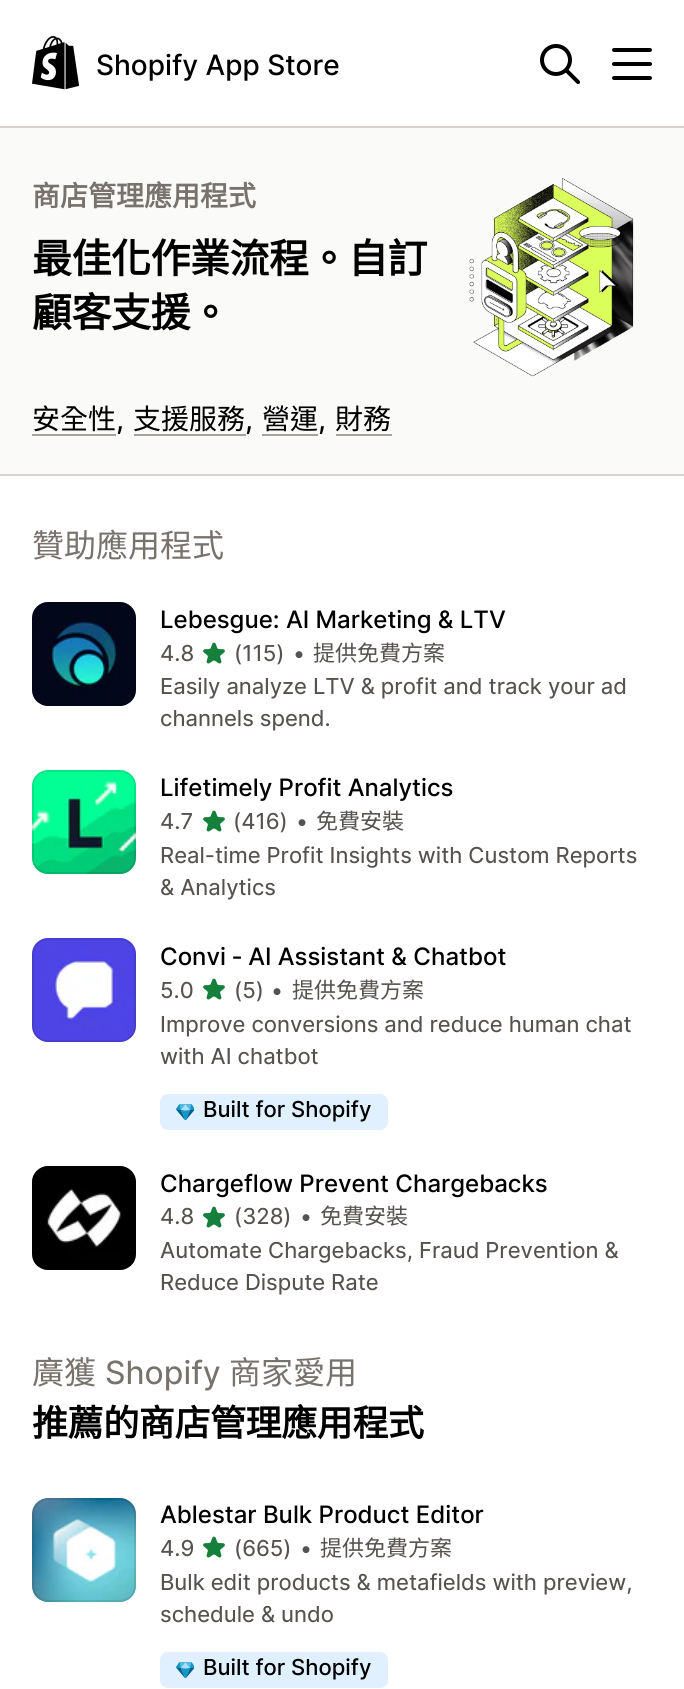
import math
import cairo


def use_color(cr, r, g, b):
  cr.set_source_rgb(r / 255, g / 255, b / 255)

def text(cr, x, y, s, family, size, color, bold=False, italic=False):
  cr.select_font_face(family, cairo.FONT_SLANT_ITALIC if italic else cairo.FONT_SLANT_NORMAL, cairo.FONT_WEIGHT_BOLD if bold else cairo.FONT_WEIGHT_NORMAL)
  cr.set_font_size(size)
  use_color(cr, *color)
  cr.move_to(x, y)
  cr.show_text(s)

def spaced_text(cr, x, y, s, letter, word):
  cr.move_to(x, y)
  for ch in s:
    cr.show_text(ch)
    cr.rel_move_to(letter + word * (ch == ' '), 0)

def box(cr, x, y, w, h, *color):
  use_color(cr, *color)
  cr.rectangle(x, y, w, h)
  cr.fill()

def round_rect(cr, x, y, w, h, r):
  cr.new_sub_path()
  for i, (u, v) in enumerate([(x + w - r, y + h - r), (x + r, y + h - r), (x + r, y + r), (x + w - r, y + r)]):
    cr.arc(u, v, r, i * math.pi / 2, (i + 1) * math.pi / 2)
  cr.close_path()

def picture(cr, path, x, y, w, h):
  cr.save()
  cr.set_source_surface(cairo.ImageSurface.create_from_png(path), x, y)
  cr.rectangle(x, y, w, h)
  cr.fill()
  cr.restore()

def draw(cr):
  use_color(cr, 255, 255, 255)
  cr.paint()
  box(cr, 0, 126, 684, 2, 214, 211, 209)
  picture(cr, "img_01.png", 32, 36, 48, 54)
  picture(cr, "img_02.png", 540, 44, 40, 40)
  picture(cr, "img_03.png", 612, 48, 40, 32)
  box(cr, 0, 128, 684, 346, 250, 250, 249)
  box(cr, 0, 474, 684, 2, 214, 211, 209)
  picture(cr, "img_04.png", 469, 178, 165, 199)
  box(cr, 32, 434, 84, 2, 168, 162, 159)
  box(cr, 134, 434, 112, 2, 168, 162, 159)
  box(cr, 262, 434, 56, 2, 168, 162, 159)
  box(cr, 336, 434, 56, 2, 168, 162, 159)
  picture(cr, "img_05.png", 32, 602, 104, 104)
  round_rect(cr, 33, 603, 102, 102, 15)
  cr.set_source_rgba(0, 0, 0, 0.1)
  cr.stroke()
  picture(cr, "img_06.png", 203, 642, 22, 22)
  picture(cr, "img_07.png", 32, 770, 104, 104)
  round_rect(cr, 33, 771, 102, 102, 15)
  cr.stroke()
  picture(cr, "img_06.png", 203, 810, 22, 22)
  picture(cr, "img_08.png", 32, 938, 104, 104)
  round_rect(cr, 33, 939, 102, 102, 15)
  cr.stroke()
  picture(cr, "img_06.png", 203, 978, 22, 22)
  use_color(cr, 224, 240, 255)
  round_rect(cr, 160, 1094, 228, 36, 8)
  cr.fill()
  picture(cr, "img_09.png", 176, 1104, 18, 16)
  picture(cr, "img_10.png", 32, 1166, 104, 104)
  round_rect(cr, 33, 1167, 102, 102, 15)
  cr.set_source_rgba(0, 0, 0, 0.1)
  cr.stroke()
  picture(cr, "img_06.png", 203, 1206, 22, 22)
  picture(cr, "img_11.png", 32, 1498, 104, 104)
  round_rect(cr, 33, 1499, 102, 102, 15)
  cr.stroke()
  picture(cr, "img_06.png", 203, 1536, 22, 22)
  use_color(cr, 224, 240, 255)
  round_rect(cr, 160, 1652, 228, 36, 8)
  cr.fill()
  picture(cr, "img_09.png", 176, 1662, 18, 16)
  text(cr, 96, 75, "Shopify App Store", "Inter Medium", 28, (0, 0, 0))
  text(cr, 32, 206, "商店管理應用程式", "Noto Sans CJK TC", 28, (120, 114, 109), bold=True)
  cr.set_font_size(40)
  use_color(cr, 0, 0, 0)
  spaced_text(cr, 32, 273, "最佳化作業流程。自訂", -0.5, 0)
  spaced_text(cr, 32, 327, "顧客支援。", -0.5, 0)
  text(cr, 32, 429, "安全性", "Noto Sans CJK TC", 28, (0, 0, 0))
  text(cr, 116, 429, ",", "Inter Medium", 28, (0, 0, 0))
  text(cr, 133, 429, "支援服務", "Noto Sans CJK TC", 28, (0, 0, 0))
  text(cr, 245, 429, ",", "Inter Medium", 28, (0, 0, 0))
  text(cr, 262, 429, "營運", "Noto Sans CJK TC", 28, (0, 0, 0))
  text(cr, 318, 429, ",", "Inter Medium", 28, (0, 0, 0))
  text(cr, 335, 429, "財務", "Noto Sans CJK TC", 28, (0, 0, 0))
  text(cr, 32, 557, "贊助應用程式", "Noto Sans CJK TC", 32, (120, 114, 109))
  text(cr, 160, 628, "Lebesgue: AI Marketing & LTV", "Inter Medium", 24, (0, 0, 0))
  text(cr, 160, 661, "4.8", "Inter", 22, (86, 82, 78))
  text(cr, 234, 661, "(115)", "Inter", 22, (86, 82, 78))
  text(cr, 293, 661, "•", "Inter", 22, (86, 82, 78))
  text(cr, 313, 661, "提供免費方案", "Noto Sans CJK TC", 22, (86, 82, 78))
  text(cr, 160, 694, "Easily analyze LTV & profit and track your ad", "Inter", 22, (86, 82, 78))
  text(cr, 160, 726, "channels spend.", "Inter", 22, (86, 82, 78))
  text(cr, 160, 796, "Lifetimely Profit Analytics", "Inter Medium", 24, (0, 0, 0))
  text(cr, 160, 829, "4.7", "Inter", 22, (86, 82, 78))
  text(cr, 233, 829, "(416)", "Inter", 22, (86, 82, 78))
  text(cr, 296, 829, "•", "Inter", 22, (86, 82, 78))
  text(cr, 316, 829, "免費安裝", "Noto Sans CJK TC", 22, (86, 82, 78))
  text(cr, 160, 863, "Real-time Profit Insights with Custom Reports", "Inter", 22, (86, 82, 78))
  text(cr, 160, 895, "& Analytics", "Inter", 22, (86, 82, 78))
  text(cr, 160, 965, "Convi ‑ AI Assistant & Chatbot", "Inter Medium", 24, (0, 0, 0))
  text(cr, 160, 998, "5.0", "Inter", 22, (86, 82, 78))
  text(cr, 234, 998, "(5)", "Inter", 22, (86, 82, 78))
  text(cr, 271, 998, "•", "Inter", 22, (86, 82, 78))
  text(cr, 292, 998, "提供免費方案", "Noto Sans CJK TC", 22, (86, 82, 78))
  text(cr, 160, 1032, "Improve conversions and reduce human chat", "Inter", 22, (86, 82, 78))
  text(cr, 160, 1064, "with AI chatbot", "Inter", 22, (86, 82, 78))
  text(cr, 203, 1117, "Built for Shopify", "Inter Medium", 22, (0, 0, 0))
  text(cr, 160, 1192, "Chargeflow Prevent Chargebacks", "Inter Medium", 24, (0, 0, 0))
  text(cr, 160, 1224, "4.8", "Inter", 22, (86, 82, 78))
  text(cr, 234, 1224, "(328)", "Inter", 22, (86, 82, 78))
  text(cr, 300, 1224, "•", "Inter", 22, (86, 82, 78))
  text(cr, 320, 1224, "免費安裝", "Noto Sans CJK TC", 22, (86, 82, 78))
  text(cr, 160, 1258, "Automate Chargebacks, Fraud Prevention &", "Inter", 22, (86, 82, 78))
  text(cr, 160, 1290, "Reduce Dispute Rate", "Inter", 22, (86, 82, 78))
  text(cr, 32, 1384, "廣獲", "Noto Sans CJK TC", 32, (120, 114, 109))
  text(cr, 105, 1384, "Shopify", "Inter", 32, (120, 114, 109))
  text(cr, 229, 1384, "商家愛用", "Noto Sans CJK TC", 32, (120, 114, 109))
  cr.select_font_face("Noto Sans CJK TC", cairo.FONT_SLANT_NORMAL, cairo.FONT_WEIGHT_BOLD)
  cr.set_font_size(36)
  use_color(cr, 0, 0, 0)
  spaced_text(cr, 32, 1436, "推薦的商店管理應用程式", -0.4, 0)
  text(cr, 160, 1523, "Ablestar Bulk Product Editor", "Inter Medium", 24, (0, 0, 0))
  text(cr, 160, 1556, "4.9", "Inter", 22, (86, 82, 78))
  text(cr, 234, 1556, "(665)", "Inter", 22, (86, 82, 78))
  text(cr, 300, 1556, "•", "Inter", 22, (86, 82, 78))
  text(cr, 320, 1556, "提供免費方案", "Noto Sans CJK TC", 22, (86, 82, 78))
  text(cr, 160, 1590, "Bulk edit products & metafields with preview,", "Inter", 22, (86, 82, 78))
  text(cr, 160, 1622, "schedule & undo", "Inter", 22, (86, 82, 78))
  text(cr, 203, 1675, "Built for Shopify", "Inter Medium", 22, (0, 0, 0))


surface = cairo.ImageSurface(cairo.FORMAT_RGB24, 684, 1689)
cr = cairo.Context(surface)
options = cairo.FontOptions()
options.set_hint_metrics(cairo.HINT_METRICS_OFF)
options.set_hint_style(cairo.HINT_STYLE_NONE)
cr.set_font_options(options)
cr.set_miter_limit(4)
draw(cr)
surface.write_to_png("out.png")
